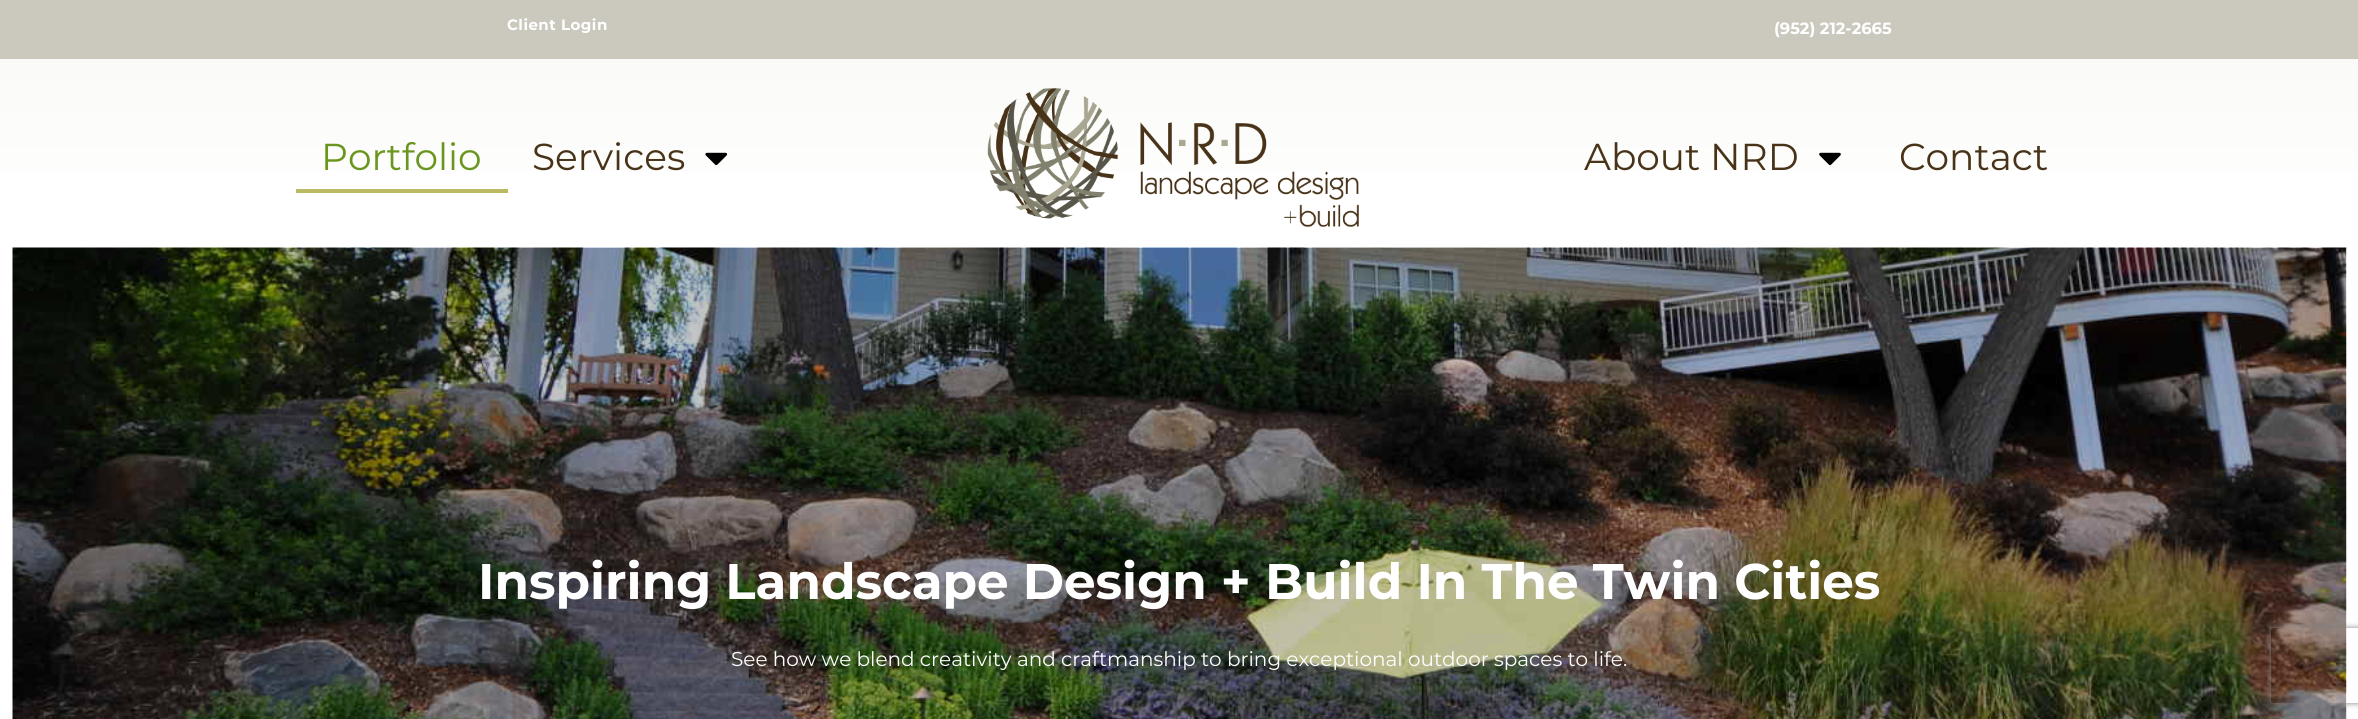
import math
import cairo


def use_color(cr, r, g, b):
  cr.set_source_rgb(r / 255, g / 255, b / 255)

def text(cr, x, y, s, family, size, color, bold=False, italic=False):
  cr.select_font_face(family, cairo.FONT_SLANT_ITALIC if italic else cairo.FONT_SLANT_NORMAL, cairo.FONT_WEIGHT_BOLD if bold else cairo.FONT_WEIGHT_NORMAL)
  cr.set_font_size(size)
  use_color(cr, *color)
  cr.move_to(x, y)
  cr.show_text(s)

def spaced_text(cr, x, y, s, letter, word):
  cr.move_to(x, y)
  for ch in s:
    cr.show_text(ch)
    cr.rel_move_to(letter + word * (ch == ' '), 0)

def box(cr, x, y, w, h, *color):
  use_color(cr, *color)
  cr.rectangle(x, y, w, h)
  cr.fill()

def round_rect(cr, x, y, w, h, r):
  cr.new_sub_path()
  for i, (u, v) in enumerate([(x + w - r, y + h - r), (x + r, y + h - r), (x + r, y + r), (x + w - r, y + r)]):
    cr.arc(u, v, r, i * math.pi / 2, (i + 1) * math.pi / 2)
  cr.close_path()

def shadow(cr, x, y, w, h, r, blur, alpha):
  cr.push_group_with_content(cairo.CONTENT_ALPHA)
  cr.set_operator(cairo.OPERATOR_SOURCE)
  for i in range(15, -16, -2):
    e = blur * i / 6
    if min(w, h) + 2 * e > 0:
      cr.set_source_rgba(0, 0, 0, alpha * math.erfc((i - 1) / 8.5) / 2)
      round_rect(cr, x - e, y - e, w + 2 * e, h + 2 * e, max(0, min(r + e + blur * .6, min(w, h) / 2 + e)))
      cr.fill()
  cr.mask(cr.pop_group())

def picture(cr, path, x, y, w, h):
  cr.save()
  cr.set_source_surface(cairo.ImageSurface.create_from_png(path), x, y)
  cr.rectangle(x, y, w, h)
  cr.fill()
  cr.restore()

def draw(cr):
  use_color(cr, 255, 255, 255)
  cr.paint()
  box(cr, 0, 0, 2358, 59, 203, 201, 190)
  gradient = cairo.LinearGradient(1179, 59, 1179, 234)
  gradient.add_color_stop_rgba(0, 0.98, 0.98, 0.973, 1)
  gradient.add_color_stop_rgba(1, 1, 1, 1, 1)
  cr.set_source(gradient)
  cr.rectangle(0, 59, 2358, 112)
  cr.fill()
  box(cr, 296, 189, 212, 4, 188, 186, 99)
  picture(cr, "img_01.png", 705, 152, 23, 14)
  picture(cr, "img_02.png", 987, 88, 372, 139)
  picture(cr, "img_03.png", 1819, 152, 22, 14)
  picture(cr, "img_04.png", 12, 247, 2335, 472)
  cr.save()
  cr.set_fill_rule(cairo.FILL_RULE_EVEN_ODD)
  cr.new_path()
  cr.move_to(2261, 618)
  cr.line_to(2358, 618)
  cr.line_to(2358, 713)
  cr.line_to(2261, 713)
  cr.close_path()
  cr.move_to(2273.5, 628)
  cr.line_to(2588.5, 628)
  cr.curve_to(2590, 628, 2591, 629, 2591, 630.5)
  cr.line_to(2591, 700.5)
  cr.curve_to(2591, 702, 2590, 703, 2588.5, 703)
  cr.line_to(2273.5, 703)
  cr.curve_to(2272, 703, 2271, 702, 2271, 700.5)
  cr.line_to(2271, 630.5)
  cr.curve_to(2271, 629, 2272, 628, 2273.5, 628)
  cr.close_path()
  cr.clip()
  use_color(cr, 128, 128, 128)
  shadow(cr, 2271, 628, 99, 75, 2.5, 3, 1)
  cr.restore()
  cr.select_font_face("Montserrat", cairo.FONT_SLANT_NORMAL, cairo.FONT_WEIGHT_BOLD)
  cr.set_font_size(15)
  use_color(cr, 255, 255, 255)
  spaced_text(cr, 507, 30, "Client Login", 0.5, 0)
  text(cr, 1774, 34, "(952) 212-2665", "Montserrat", 16.25, (255, 255, 255), bold=True)
  text(cr, 321, 170, "Portfolio", "Montserrat", 37.5, (106, 150, 31))
  text(cr, 532, 170, "Services", "Montserrat", 37.5, (72, 51, 24))
  text(cr, 1584, 170, "About NRD", "Montserrat", 37.5, (72, 51, 24))
  text(cr, 1899, 170, "Contact", "Montserrat", 37.5, (72, 51, 24))
  text(cr, 478, 599, "Inspiring Landscape Design + Build In The Twin Cities", "Montserrat", 50, (255, 255, 255), bold=True)
  text(cr, 731, 666, "See how we blend creativity and craftmanship to bring exceptional outdoor spaces to life.", "Montserrat", 20, (255, 255, 255))


surface = cairo.ImageSurface(cairo.FORMAT_RGB24, 2358, 719)
cr = cairo.Context(surface)
options = cairo.FontOptions()
options.set_hint_metrics(cairo.HINT_METRICS_OFF)
options.set_hint_style(cairo.HINT_STYLE_NONE)
cr.set_font_options(options)
cr.set_miter_limit(4)
draw(cr)
surface.write_to_png("out.png")
